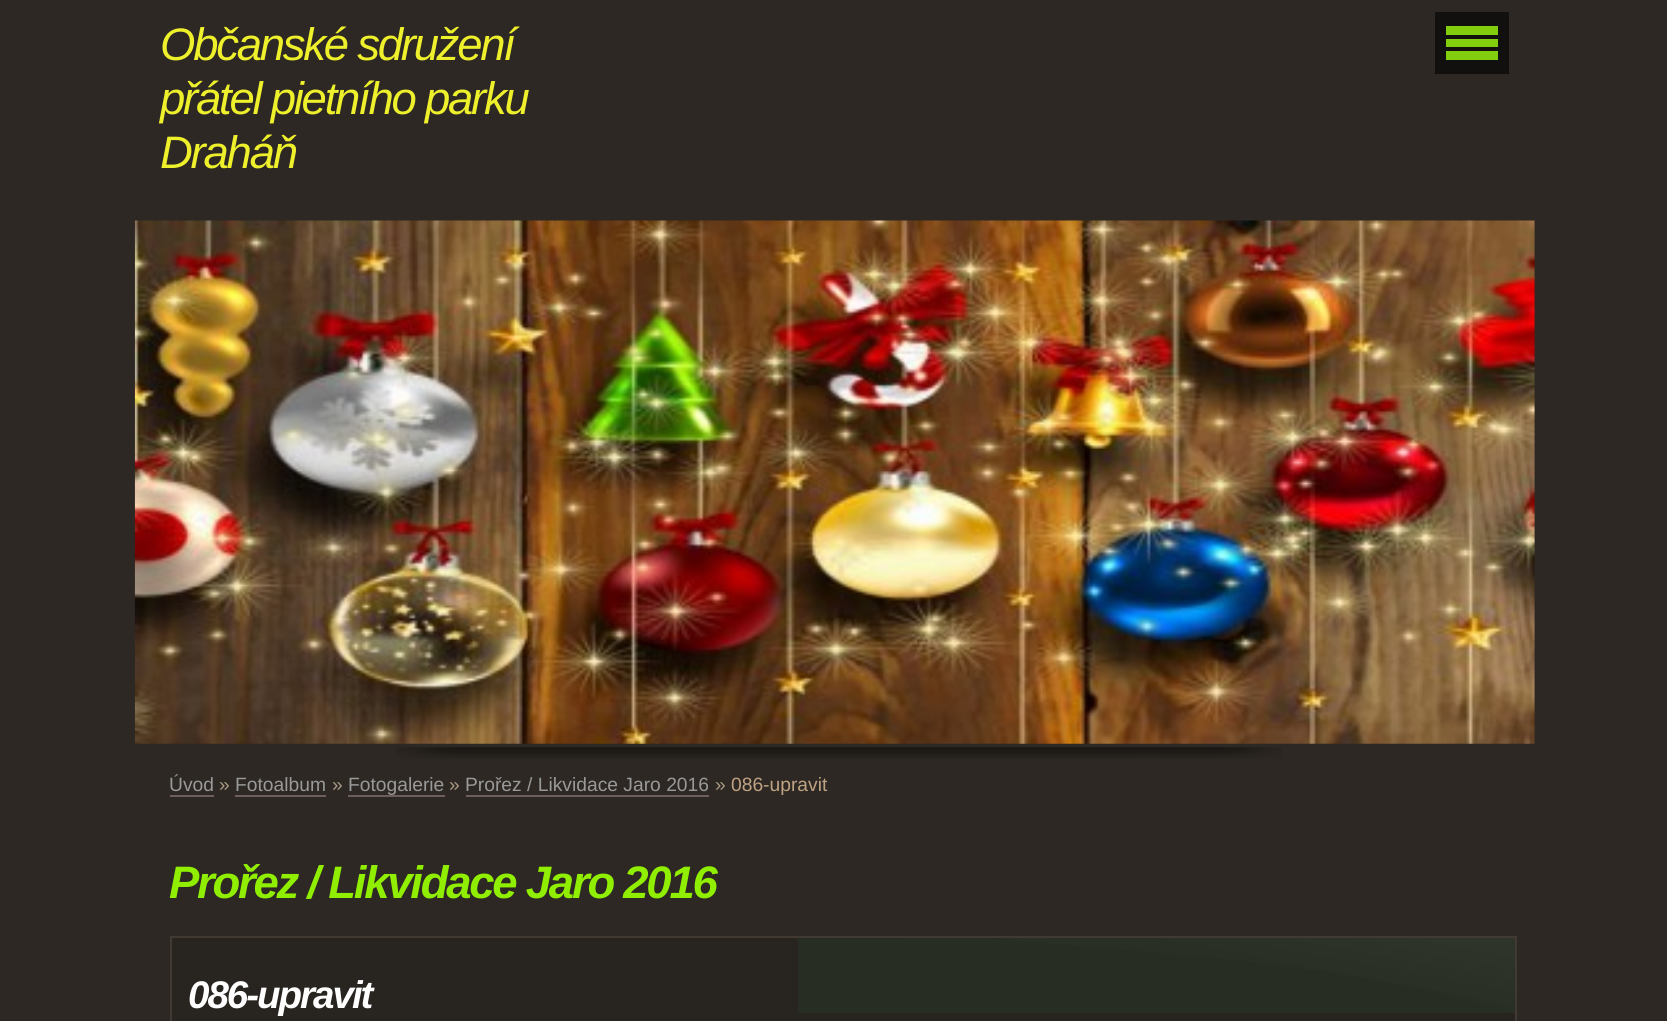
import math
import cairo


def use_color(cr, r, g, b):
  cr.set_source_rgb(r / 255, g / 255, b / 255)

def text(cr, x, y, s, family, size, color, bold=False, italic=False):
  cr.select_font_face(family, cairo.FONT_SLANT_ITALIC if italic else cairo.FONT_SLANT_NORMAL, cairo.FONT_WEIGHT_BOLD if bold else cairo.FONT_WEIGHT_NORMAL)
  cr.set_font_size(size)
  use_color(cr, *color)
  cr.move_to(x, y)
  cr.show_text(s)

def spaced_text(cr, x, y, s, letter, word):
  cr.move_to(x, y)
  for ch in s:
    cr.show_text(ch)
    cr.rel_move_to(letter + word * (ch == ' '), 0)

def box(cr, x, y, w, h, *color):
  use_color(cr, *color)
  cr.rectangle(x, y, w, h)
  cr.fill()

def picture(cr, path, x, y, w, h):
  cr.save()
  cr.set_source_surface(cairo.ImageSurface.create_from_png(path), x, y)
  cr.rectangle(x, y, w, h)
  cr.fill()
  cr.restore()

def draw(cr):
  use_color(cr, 45, 40, 35)
  cr.paint()
  picture(cr, "img_01.png", 134, 220, 1401, 524)
  box(cr, 1435, 12, 74, 62, 18, 16, 14)
  box(cr, 1446, 26, 52, 9, 129, 205, 14)
  box(cr, 1446, 39, 52, 8, 129, 205, 14)
  box(cr, 1446, 51, 52, 9, 129, 205, 14)
  picture(cr, "img_02.png", 396, 747, 886, 12)
  box(cr, 170, 795, 44, 2, 107, 94, 92)
  box(cr, 235, 795, 91, 2, 107, 94, 92)
  box(cr, 348, 795, 97, 2, 107, 94, 92)
  box(cr, 466, 795, 243, 2, 107, 94, 92)
  box(cr, 172, 938, 1343, 83, 40, 36, 31)
  picture(cr, "img_03.png", 798, 938, 717, 75)
  cr.rectangle(171, 937, 1345, 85)
  use_color(cr, 65, 58, 51)
  cr.stroke()
  cr.select_font_face("Liberation Sans", cairo.FONT_SLANT_ITALIC)
  cr.set_font_size(45.5)
  use_color(cr, 238, 240, 44)
  spaced_text(cr, 160, 60, "Občanské sdružení", -2.25, 0)
  spaced_text(cr, 160, 114, "přátel pietního parku", -2.25, 0)
  spaced_text(cr, 160, 168, "Draháň", -2.25, 0)
  text(cr, 169, 791, "Úvod", "Liberation Sans", 19.25, (153, 153, 153))
  text(cr, 219, 791, "»", "Liberation Sans", 19.25, (169, 153, 133))
  text(cr, 235, 791, "Fotoalbum", "Liberation Sans", 19.25, (153, 153, 153))
  text(cr, 332, 791, "»", "Liberation Sans", 19.25, (169, 153, 133))
  text(cr, 348, 791, "Fotogalerie", "Liberation Sans", 19.25, (153, 153, 153))
  text(cr, 449, 791, "»", "Liberation Sans", 19.25, (169, 153, 133))
  text(cr, 465, 791, "Prořez / Likvidace Jaro 2016", "Liberation Sans", 19.25, (153, 153, 153))
  text(cr, 715, 791, "»", "Liberation Sans", 19.25, (169, 153, 133))
  text(cr, 731, 791, "086-upravit", "Liberation Sans", 19.25, (191, 162, 131))
  cr.select_font_face("Liberation Sans", cairo.FONT_SLANT_ITALIC, cairo.FONT_WEIGHT_BOLD)
  cr.set_font_size(45.5)
  use_color(cr, 144, 239, 1)
  spaced_text(cr, 169, 898, "Prořez / Likvidace Jaro 2016", -2.25, 0)
  cr.set_font_size(38.5)
  use_color(cr, 255, 255, 255)
  spaced_text(cr, 188, 1008, "086-upravit", -2, 0)


surface = cairo.ImageSurface(cairo.FORMAT_RGB24, 1667, 1021)
cr = cairo.Context(surface)
options = cairo.FontOptions()
options.set_hint_metrics(cairo.HINT_METRICS_OFF)
options.set_hint_style(cairo.HINT_STYLE_NONE)
cr.set_font_options(options)
cr.set_miter_limit(4)
draw(cr)
surface.write_to_png("out.png")
